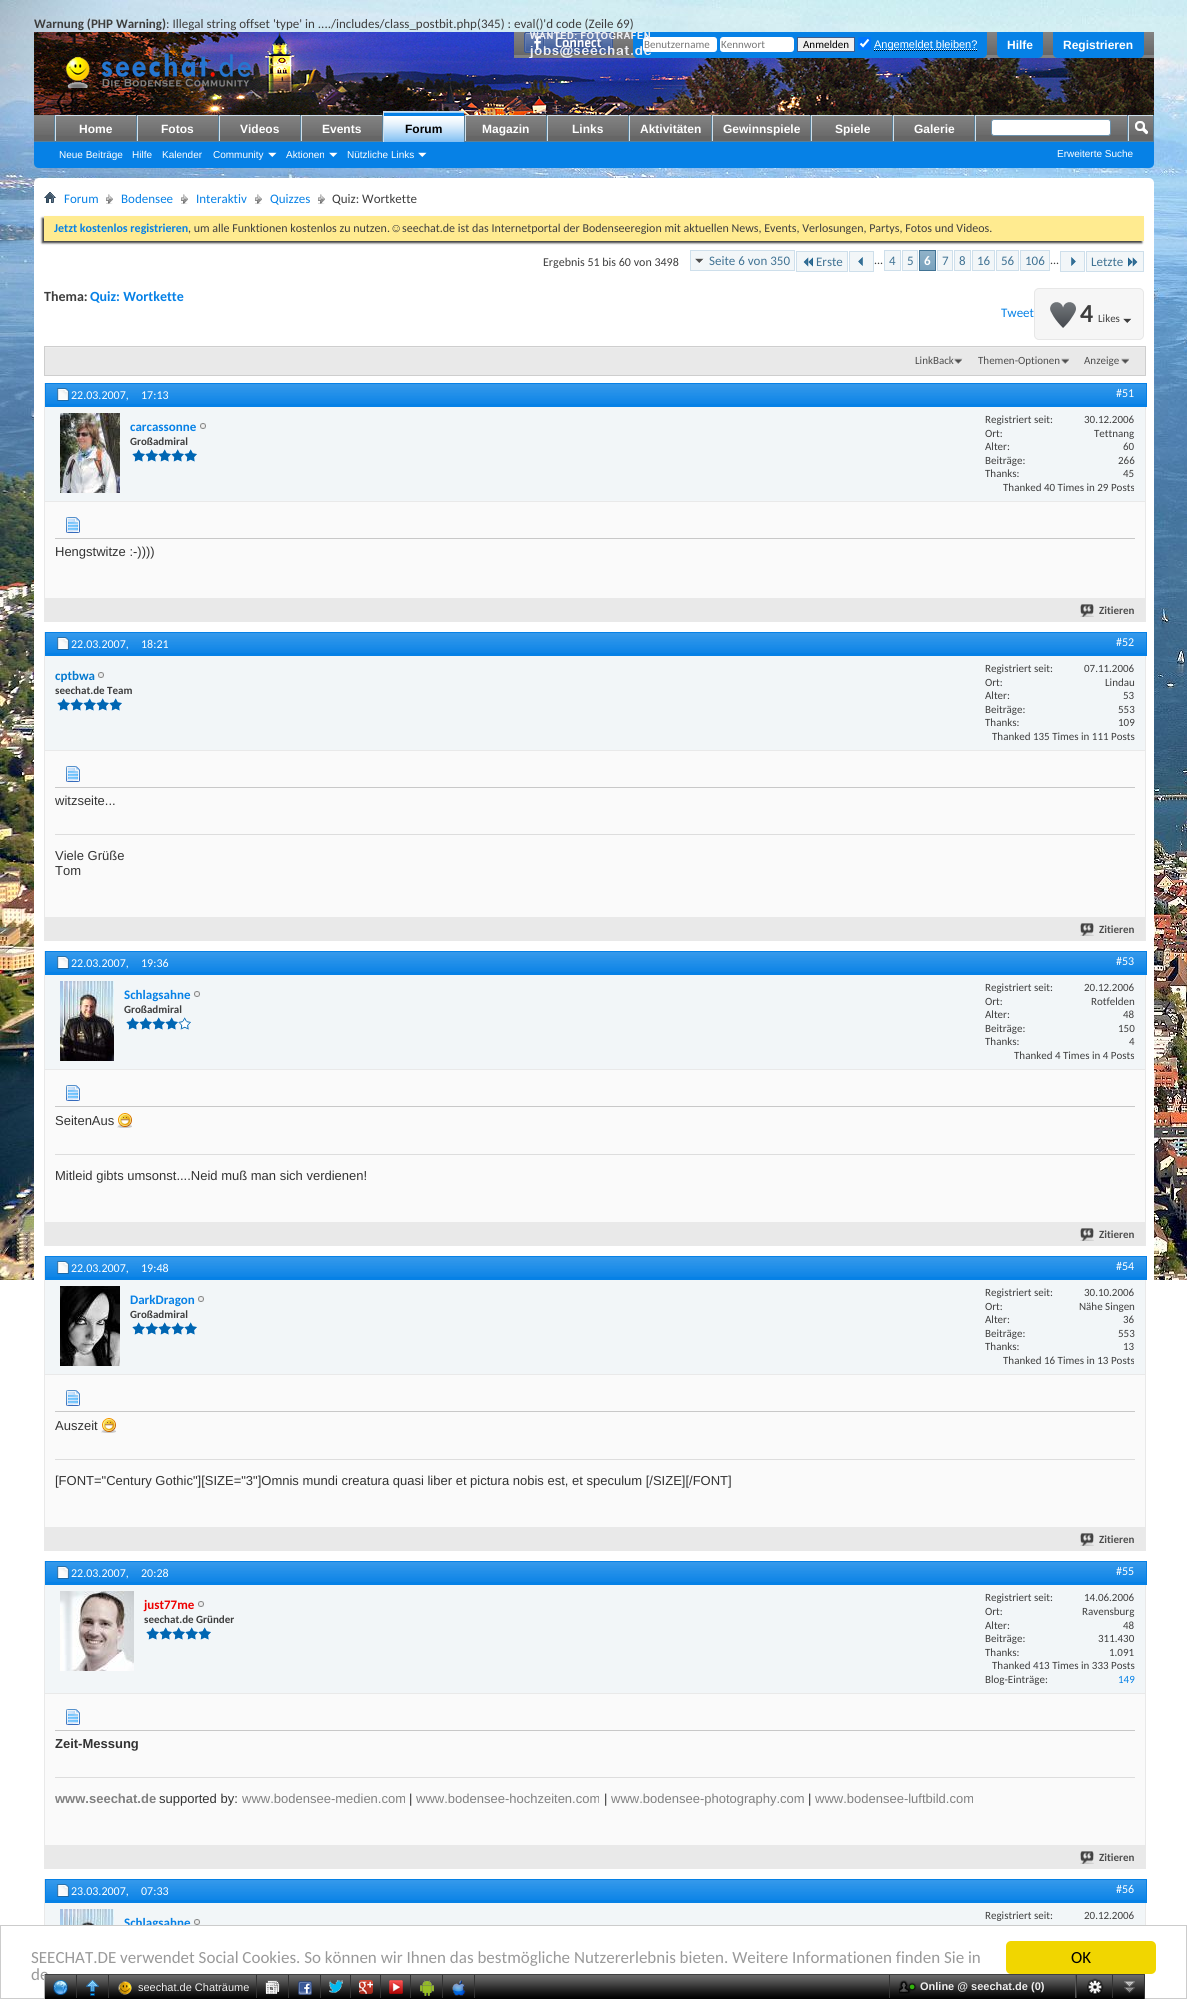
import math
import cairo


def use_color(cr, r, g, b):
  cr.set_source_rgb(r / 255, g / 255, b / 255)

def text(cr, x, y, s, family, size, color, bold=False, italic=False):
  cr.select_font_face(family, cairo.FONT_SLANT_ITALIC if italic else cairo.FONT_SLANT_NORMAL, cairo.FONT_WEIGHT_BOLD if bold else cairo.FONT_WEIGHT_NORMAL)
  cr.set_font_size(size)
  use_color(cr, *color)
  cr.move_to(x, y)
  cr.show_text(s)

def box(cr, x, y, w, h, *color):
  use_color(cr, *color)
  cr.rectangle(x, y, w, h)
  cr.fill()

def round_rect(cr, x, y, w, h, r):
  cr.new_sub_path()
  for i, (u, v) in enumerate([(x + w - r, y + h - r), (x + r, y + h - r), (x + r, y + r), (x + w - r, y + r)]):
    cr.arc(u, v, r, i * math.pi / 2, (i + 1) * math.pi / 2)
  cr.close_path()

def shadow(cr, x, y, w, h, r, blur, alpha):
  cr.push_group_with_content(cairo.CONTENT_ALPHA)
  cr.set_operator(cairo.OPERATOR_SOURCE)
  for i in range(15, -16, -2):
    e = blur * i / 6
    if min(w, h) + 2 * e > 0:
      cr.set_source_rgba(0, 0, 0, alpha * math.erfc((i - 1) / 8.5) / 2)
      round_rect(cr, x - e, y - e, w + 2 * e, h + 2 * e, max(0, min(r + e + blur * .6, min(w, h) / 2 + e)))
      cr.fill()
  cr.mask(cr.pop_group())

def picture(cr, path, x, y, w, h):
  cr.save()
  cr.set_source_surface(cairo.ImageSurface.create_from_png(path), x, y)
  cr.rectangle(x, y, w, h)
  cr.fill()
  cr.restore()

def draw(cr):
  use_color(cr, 255, 255, 255)
  cr.paint()
  picture(cr, "img_01.png", 0, 0, 1187, 1280)
  picture(cr, "img_03.png", 34, 32, 1120, 83)
  box(cr, 514, 32, 640, 26, 102, 102, 102)
  picture(cr, "img_04.png", 514, 32, 640, 26)
  picture(cr, "img_05.png", 524, 32, 89, 21)
  use_color(cr, 6, 129, 230)
  cr.new_path()
  cr.move_to(633, 32)
  cr.line_to(987, 32)
  cr.line_to(987, 53)
  cr.curve_to(987, 56, 985, 58, 982, 58)
  cr.line_to(638, 58)
  cr.curve_to(635, 58, 633, 56, 633, 53)
  cr.close_path()
  cr.fill()
  use_color(cr, 255, 255, 255)
  round_rect(cr, 643, 37, 74, 15, 3)
  cr.fill()
  round_rect(cr, 720, 37, 74, 15, 3)
  cr.fill()
  use_color(cr, 239, 239, 239)
  cr.rectangle(797.5, 37.5, 57, 14)
  cr.fill_preserve()
  use_color(cr, 65, 93, 141)
  cr.set_line_width(1)
  cr.stroke()
  use_color(cr, 0, 117, 255)
  round_rect(cr, 858, 37, 13, 13, 2)
  cr.fill()
  cr.new_path()
  cr.move_to(860.5, 43.5)
  cr.line_to(863, 46)
  cr.line_to(868.5, 39.5)
  use_color(cr, 255, 255, 255)
  cr.set_line_width(2.1)
  cr.stroke()
  cr.new_path()
  cr.move_to(874, 50.5)
  cr.line_to(977, 50.5)
  use_color(cr, 0, 0, 0)
  cr.set_line_width(1)
  cr.set_dash([1, 1])
  cr.stroke()
  cr.new_path()
  cr.move_to(874, 49.5)
  cr.line_to(977.5, 49.5)
  use_color(cr, 255, 255, 255)
  cr.stroke()
  use_color(cr, 6, 129, 230)
  cr.new_path()
  cr.move_to(997, 32)
  cr.line_to(1043, 32)
  cr.line_to(1043, 53)
  cr.curve_to(1043, 56, 1041, 58, 1038, 58)
  cr.line_to(1002, 58)
  cr.curve_to(999, 58, 997, 56, 997, 53)
  cr.close_path()
  cr.fill()
  cr.new_path()
  cr.move_to(1053, 32)
  cr.line_to(1144, 32)
  cr.line_to(1144, 53)
  cr.curve_to(1144, 56, 1142, 58, 1139, 58)
  cr.line_to(1058, 58)
  cr.curve_to(1055, 58, 1053, 56, 1053, 53)
  cr.close_path()
  cr.fill()
  cr.new_path()
  cr.move_to(34, 115)
  cr.line_to(1154, 115)
  cr.line_to(1154, 163)
  cr.curve_to(1154, 166, 1152, 168, 1149, 168)
  cr.line_to(39, 168)
  cr.curve_to(36, 168, 34, 166, 34, 163)
  cr.close_path()
  cr.fill()
  box(cr, 34, 115, 1119, 26, 102, 102, 102)
  picture(cr, "img_06.png", 34, 115, 1119, 20)
  box(cr, 136, 115, 1, 27, 90, 127, 151)
  box(cr, 54, 115, 1, 27, 90, 127, 151)
  box(cr, 56, 116, 80, 19, 102, 102, 102)
  picture(cr, "img_07.png", 56, 116, 80, 20)
  box(cr, 55, 115, 81, 1, 206, 223, 235)
  box(cr, 55, 115, 1, 27, 206, 223, 235)
  box(cr, 218, 115, 1, 27, 90, 127, 151)
  box(cr, 138, 116, 80, 19, 102, 102, 102)
  picture(cr, "img_07.png", 138, 116, 80, 20)
  box(cr, 137, 115, 81, 1, 206, 223, 235)
  box(cr, 137, 115, 1, 27, 206, 223, 235)
  box(cr, 300, 115, 1, 27, 90, 127, 151)
  box(cr, 220, 116, 80, 19, 102, 102, 102)
  picture(cr, "img_07.png", 220, 116, 80, 20)
  box(cr, 219, 115, 81, 1, 206, 223, 235)
  box(cr, 219, 115, 1, 27, 206, 223, 235)
  box(cr, 382, 115, 1, 27, 90, 127, 151)
  box(cr, 302, 116, 80, 19, 102, 102, 102)
  picture(cr, "img_07.png", 302, 116, 80, 20)
  box(cr, 301, 115, 81, 1, 206, 223, 235)
  box(cr, 301, 115, 1, 27, 206, 223, 235)
  box(cr, 464, 115, 1, 26, 90, 127, 151)
  box(cr, 546, 115, 1, 27, 90, 127, 151)
  box(cr, 465, 115, 81, 1, 206, 223, 235)
  box(cr, 465, 115, 1, 27, 206, 223, 235)
  box(cr, 628, 115, 1, 27, 90, 127, 151)
  box(cr, 547, 115, 81, 1, 206, 223, 235)
  box(cr, 547, 115, 1, 27, 206, 223, 235)
  box(cr, 711, 115, 1, 27, 90, 127, 151)
  box(cr, 629, 115, 82, 1, 206, 223, 235)
  box(cr, 629, 115, 1, 27, 206, 223, 235)
  box(cr, 810, 115, 1, 27, 90, 127, 151)
  box(cr, 712, 115, 98, 1, 206, 223, 235)
  box(cr, 712, 115, 1, 27, 206, 223, 235)
  box(cr, 892, 115, 1, 27, 90, 127, 151)
  box(cr, 811, 115, 81, 1, 206, 223, 235)
  box(cr, 811, 115, 1, 27, 206, 223, 235)
  box(cr, 974, 115, 1, 27, 90, 127, 151)
  box(cr, 893, 115, 81, 1, 206, 223, 235)
  box(cr, 893, 115, 1, 27, 206, 223, 235)
  box(cr, 34, 141, 1120, 1, 90, 127, 151)
  box(cr, 384, 112, 80, 30, 6, 129, 230)
  picture(cr, "img_08.png", 384, 112, 80, 30)
  box(cr, 383, 111, 81, 1, 206, 223, 235)
  box(cr, 383, 111, 1, 31, 206, 223, 235)
  box(cr, 466, 116, 80, 19, 102, 102, 102)
  picture(cr, "img_07.png", 466, 116, 80, 20)
  box(cr, 548, 116, 80, 19, 102, 102, 102)
  picture(cr, "img_07.png", 548, 116, 80, 20)
  box(cr, 630, 116, 81, 19, 102, 102, 102)
  picture(cr, "img_09.png", 630, 116, 81, 20)
  box(cr, 713, 116, 97, 19, 102, 102, 102)
  picture(cr, "img_10.png", 713, 116, 97, 20)
  box(cr, 812, 116, 80, 19, 102, 102, 102)
  picture(cr, "img_07.png", 812, 116, 80, 20)
  box(cr, 894, 116, 80, 19, 102, 102, 102)
  picture(cr, "img_07.png", 894, 116, 80, 20)
  picture(cr, "img_11.png", 268, 152, 9, 5)
  picture(cr, "img_11.png", 329, 152, 9, 5)
  picture(cr, "img_11.png", 418, 152, 9, 5)
  box(cr, 975, 115, 152, 1, 206, 223, 235)
  box(cr, 975, 115, 1, 26, 206, 223, 235)
  use_color(cr, 255, 255, 255)
  round_rect(cr, 991.5, 119.5, 119, 16, 2.5)
  cr.fill_preserve()
  use_color(cr, 107, 145, 171)
  cr.set_dash([])
  cr.stroke()
  box(cr, 1153, 115, 1, 26, 90, 127, 151)
  box(cr, 1127, 115, 1, 26, 90, 127, 151)
  box(cr, 1128, 115, 25, 1, 206, 223, 235)
  box(cr, 1128, 115, 1, 26, 206, 223, 235)
  picture(cr, "img_12.png", 1135, 121, 13, 14)
  use_color(cr, 255, 255, 255)
  round_rect(cr, 34, 178, 1120, 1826, 5)
  cr.fill()
  picture(cr, "img_13.png", 44, 192, 12, 11)
  picture(cr, "img_14.png", 106, 194, 7, 10)
  picture(cr, "img_14.png", 181, 194, 7, 10)
  picture(cr, "img_14.png", 255, 194, 7, 10)
  picture(cr, "img_14.png", 318, 194, 7, 10)
  use_color(cr, 62, 62, 62)
  shadow(cr, 42, 218, 1100, 25, 0, 1, 1)
  box(cr, 44, 216, 1100, 25, 255, 235, 144)
  box(cr, 691, 251, 103, 19, 242, 246, 248)
  picture(cr, "img_15.png", 695, 258, 9, 6)
  cr.rectangle(690.5, 250.5, 104, 20)
  use_color(cr, 206, 223, 235)
  cr.stroke()
  box(cr, 797, 252, 50, 19, 242, 246, 248)
  picture(cr, "img_16.png", 803, 257, 10, 10)
  box(cr, 796, 251, 52, 1, 206, 223, 235)
  box(cr, 796, 271, 20, 1, 206, 223, 235)
  box(cr, 796, 251, 1, 21, 206, 223, 235)
  box(cr, 847, 251, 1, 21, 206, 223, 235)
  box(cr, 816, 271, 32, 1, 206, 223, 235)
  use_color(cr, 242, 246, 248)
  cr.rectangle(849.5, 251.5, 24, 20)
  cr.fill_preserve()
  use_color(cr, 206, 223, 235)
  cr.stroke()
  picture(cr, "img_17.png", 858, 257, 5, 9)
  use_color(cr, 242, 246, 248)
  cr.rectangle(884.5, 250.5, 16, 20)
  cr.fill_preserve()
  use_color(cr, 206, 223, 235)
  cr.stroke()
  use_color(cr, 242, 246, 248)
  cr.rectangle(902.5, 250.5, 15, 20)
  cr.fill_preserve()
  use_color(cr, 206, 223, 235)
  cr.stroke()
  box(cr, 920, 251, 15, 19, 117, 159, 187)
  picture(cr, "img_18.png", 920, 251, 15, 19)
  cr.rectangle(919.5, 250.5, 16, 20)
  use_color(cr, 65, 115, 148)
  cr.stroke()
  use_color(cr, 242, 246, 248)
  cr.rectangle(937.5, 250.5, 15, 20)
  cr.fill_preserve()
  use_color(cr, 206, 223, 235)
  cr.stroke()
  use_color(cr, 242, 246, 248)
  cr.rectangle(954.5, 250.5, 16, 20)
  cr.fill_preserve()
  use_color(cr, 206, 223, 235)
  cr.stroke()
  use_color(cr, 242, 246, 248)
  cr.rectangle(972.5, 250.5, 22, 20)
  cr.fill_preserve()
  use_color(cr, 206, 223, 235)
  cr.stroke()
  use_color(cr, 242, 246, 248)
  cr.rectangle(996.5, 250.5, 22, 20)
  cr.fill_preserve()
  use_color(cr, 206, 223, 235)
  cr.stroke()
  use_color(cr, 242, 246, 248)
  cr.rectangle(1020.5, 250.5, 29, 20)
  cr.fill_preserve()
  use_color(cr, 206, 223, 235)
  cr.stroke()
  use_color(cr, 242, 246, 248)
  cr.rectangle(1060.5, 251.5, 24, 20)
  cr.fill_preserve()
  use_color(cr, 206, 223, 235)
  cr.stroke()
  picture(cr, "img_19.png", 1071, 257, 5, 9)
  box(cr, 1087, 252, 56, 19, 242, 246, 248)
  box(cr, 1086, 251, 58, 1, 206, 223, 235)
  box(cr, 1086, 271, 38, 1, 206, 223, 235)
  box(cr, 1086, 251, 1, 21, 206, 223, 235)
  box(cr, 1143, 251, 1, 21, 206, 223, 235)
  box(cr, 1124, 271, 20, 1, 206, 223, 235)
  picture(cr, "img_20.png", 1128, 257, 10, 10)
  use_color(cr, 246, 246, 246)
  round_rect(cr, 1034.5, 288.5, 109, 51, 4.5)
  cr.fill_preserve()
  use_color(cr, 231, 231, 231)
  cr.stroke()
  picture(cr, "img_21.png", 1050, 302, 26, 26)
  picture(cr, "img_22.png", 1123, 318, 9, 5)
  box(cr, 45, 348, 1100, 27, 233, 233, 233)
  box(cr, 44, 347, 1102, 1, 237, 237, 237)
  cr.rectangle(44.5, 346.5, 1101, 29)
  use_color(cr, 206, 206, 206)
  cr.stroke()
  picture(cr, "img_23.png", 954, 358, 9, 7)
  picture(cr, "img_23.png", 1061, 358, 9, 7)
  picture(cr, "img_23.png", 1121, 358, 9, 7)
  cr.rectangle(44.5, 383.5, 1101, 238)
  use_color(cr, 233, 233, 233)
  cr.stroke()
  box(cr, 46, 384, 1100, 22, 6, 129, 230)
  picture(cr, "img_24.png", 46, 384, 1100, 20)
  cr.rectangle(45.5, 383.5, 1101, 23)
  cr.stroke()
  picture(cr, "img_25.png", 57, 388, 12, 13)
  box(cr, 45, 407, 1100, 94, 242, 246, 248)
  box(cr, 45, 501, 1100, 1, 233, 233, 233)
  picture(cr, "img_26.png", 60, 413, 60, 80)
  picture(cr, "img_27.png", 200, 423, 6, 6)
  picture(cr, "img_28.png", 132, 449, 65, 13)
  box(cr, 45, 502, 1100, 96, 250, 250, 250)
  box(cr, 55, 538, 1080, 1, 200, 200, 200)
  picture(cr, "img_29.png", 66, 517, 14, 16)
  box(cr, 45, 598, 1100, 23, 233, 233, 233)
  picture(cr, "img_30.png", 1080, 604, 14, 13)
  cr.rectangle(44.5, 632.5, 1101, 308)
  cr.stroke()
  box(cr, 46, 633, 1100, 22, 6, 129, 230)
  picture(cr, "img_24.png", 46, 633, 1100, 20)
  cr.rectangle(45.5, 632.5, 1101, 23)
  cr.stroke()
  picture(cr, "img_25.png", 57, 637, 12, 13)
  box(cr, 45, 656, 1100, 94, 242, 246, 248)
  box(cr, 45, 750, 1100, 1, 233, 233, 233)
  picture(cr, "img_27.png", 98, 672, 6, 6)
  picture(cr, "img_28.png", 57, 698, 65, 13)
  box(cr, 45, 751, 1100, 166, 250, 250, 250)
  box(cr, 55, 787, 1080, 1, 200, 200, 200)
  picture(cr, "img_29.png", 66, 766, 14, 16)
  box(cr, 55, 834, 1080, 1, 221, 221, 221)
  box(cr, 45, 917, 1100, 23, 233, 233, 233)
  picture(cr, "img_30.png", 1080, 923, 14, 13)
  cr.rectangle(44.5, 951.5, 1101, 294)
  cr.stroke()
  box(cr, 46, 952, 1100, 22, 6, 129, 230)
  picture(cr, "img_24.png", 46, 952, 1100, 20)
  cr.rectangle(45.5, 951.5, 1101, 23)
  cr.stroke()
  picture(cr, "img_25.png", 57, 956, 12, 13)
  box(cr, 45, 975, 1100, 94, 242, 246, 248)
  box(cr, 45, 1069, 1100, 1, 233, 233, 233)
  picture(cr, "img_31.png", 60, 981, 54, 80)
  picture(cr, "img_27.png", 194, 991, 6, 6)
  picture(cr, "img_32.png", 126, 1017, 65, 13)
  box(cr, 45, 1070, 1100, 152, 250, 250, 250)
  box(cr, 55, 1106, 1080, 1, 200, 200, 200)
  picture(cr, "img_29.png", 66, 1085, 14, 16)
  picture(cr, "img_33.png", 117, 1113, 15, 15)
  box(cr, 55, 1154, 1080, 1, 221, 221, 221)
  box(cr, 45, 1222, 1100, 23, 233, 233, 233)
  picture(cr, "img_30.png", 1080, 1228, 14, 13)
  cr.rectangle(44.5, 1256.5, 1101, 294)
  cr.stroke()
  box(cr, 46, 1257, 1100, 22, 6, 129, 230)
  picture(cr, "img_24.png", 46, 1257, 1100, 20)
  cr.rectangle(45.5, 1256.5, 1101, 23)
  cr.stroke()
  picture(cr, "img_25.png", 57, 1261, 12, 13)
  box(cr, 45, 1280, 1100, 94, 242, 246, 248)
  box(cr, 45, 1374, 1100, 1, 233, 233, 233)
  picture(cr, "img_34.png", 60, 1286, 60, 80)
  picture(cr, "img_27.png", 198, 1296, 6, 6)
  picture(cr, "img_28.png", 132, 1322, 65, 13)
  box(cr, 45, 1375, 1100, 152, 250, 250, 250)
  box(cr, 55, 1411, 1080, 1, 200, 200, 200)
  picture(cr, "img_29.png", 66, 1390, 14, 16)
  picture(cr, "img_33.png", 101, 1418, 15, 15)
  box(cr, 55, 1459, 1080, 1, 221, 221, 221)
  box(cr, 45, 1527, 1100, 23, 233, 233, 233)
  picture(cr, "img_30.png", 1080, 1533, 14, 13)
  cr.rectangle(44.5, 1561.5, 1101, 307)
  cr.stroke()
  box(cr, 46, 1562, 1100, 22, 6, 129, 230)
  picture(cr, "img_24.png", 46, 1562, 1100, 20)
  cr.rectangle(45.5, 1561.5, 1101, 23)
  cr.stroke()
  picture(cr, "img_25.png", 57, 1566, 12, 13)
  box(cr, 45, 1585, 1100, 108, 242, 246, 248)
  box(cr, 45, 1693, 1100, 1, 233, 233, 233)
  picture(cr, "img_35.png", 60, 1591, 74, 80)
  picture(cr, "img_27.png", 198, 1601, 6, 6)
  picture(cr, "img_28.png", 146, 1627, 65, 13)
  box(cr, 45, 1694, 1100, 151, 250, 250, 250)
  box(cr, 55, 1730, 1080, 1, 200, 200, 200)
  picture(cr, "img_29.png", 66, 1709, 14, 16)
  box(cr, 55, 1777, 1080, 1, 221, 221, 221)
  box(cr, 45, 1845, 1100, 23, 233, 233, 233)
  picture(cr, "img_30.png", 1080, 1851, 14, 13)
  cr.rectangle(44.5, 1879.5, 1101, 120)
  cr.stroke()
  box(cr, 46, 1880, 1100, 22, 6, 129, 230)
  picture(cr, "img_24.png", 46, 1880, 1100, 20)
  cr.rectangle(45.5, 1879.5, 1101, 23)
  cr.stroke()
  picture(cr, "img_25.png", 57, 1884, 12, 13)
  box(cr, 45, 1903, 1100, 22, 242, 246, 248)
  picture(cr, "img_36.png", 60, 1909, 54, 16)
  picture(cr, "img_27.png", 194, 1919, 6, 6)
  text(cr, 34, 28, "Warnung (PHP Warning)", "Carlito", 13, (62, 62, 62), bold=True)
  text(cr, 166, 28, ": Illegal string offset 'type' in ..../includes/class_postbit.php(345) : eval()'d code (Zeile 69)", "Carlito", 13, (62, 62, 62))
  text(cr, 644, 48, "Benutzername", "Carlito", 11, (119, 119, 119))
  picture(cr, "img_02.png", 529, 32, 122, 26)
  text(cr, 721, 48, "Kennwort", "Carlito", 11, (119, 119, 119))
  text(cr, 803, 48, "Anmelden", "Carlito", 11, (0, 0, 0))
  text(cr, 874, 48, "Angemeldet bleiben?", "Liberation Sans", 11, (255, 255, 255))
  text(cr, 1007, 49, "Hilfe", "Liberation Sans", 12, (255, 255, 255), bold=True)
  text(cr, 1063, 49, "Registrieren", "Liberation Sans", 12, (255, 255, 255), bold=True)
  text(cr, 79, 133, "Home", "Liberation Sans", 12, (255, 255, 255), bold=True)
  text(cr, 161, 133, "Fotos", "Liberation Sans", 12, (255, 255, 255), bold=True)
  text(cr, 240, 133, "Videos", "Liberation Sans", 12, (255, 255, 255), bold=True)
  text(cr, 322, 133, "Events", "Liberation Sans", 12, (255, 255, 255), bold=True)
  text(cr, 405, 133, "Forum", "Liberation Sans", 12, (0, 0, 0), bold=True)
  text(cr, 482, 133, "Magazin", "Liberation Sans", 12, (255, 255, 255), bold=True)
  text(cr, 572, 133, "Links", "Liberation Sans", 12, (255, 255, 255), bold=True)
  text(cr, 640, 133, "Aktivitäten", "Liberation Sans", 12, (255, 255, 255), bold=True)
  text(cr, 723, 133, "Gewinnspiele", "Liberation Sans", 12, (255, 255, 255), bold=True)
  text(cr, 835, 133, "Spiele", "Liberation Sans", 12, (255, 255, 255), bold=True)
  text(cr, 914, 133, "Galerie", "Liberation Sans", 12, (255, 255, 255), bold=True)
  text(cr, 59, 158, "Neue Beiträge", "Liberation Sans", 10, (255, 255, 255))
  text(cr, 132, 158, "Hilfe", "Liberation Sans", 10, (255, 255, 255))
  text(cr, 162, 158, "Kalender", "Liberation Sans", 10, (255, 255, 255))
  text(cr, 213, 158, "Community", "Liberation Sans", 10, (255, 255, 255))
  text(cr, 286, 158, "Aktionen", "Liberation Sans", 10, (255, 255, 255))
  text(cr, 347, 158, "Nützliche Links", "Liberation Sans", 10, (255, 255, 255))
  text(cr, 1057, 157, "Erweiterte Suche", "Liberation Sans", 10, (255, 255, 255))
  text(cr, 64, 203, "Forum", "Carlito", 13, (6, 129, 230))
  text(cr, 121, 203, "Bodensee", "Carlito", 13, (6, 129, 230))
  text(cr, 196, 203, "Interaktiv", "Carlito", 13, (6, 129, 230))
  text(cr, 270, 203, "Quizzes", "Carlito", 13, (6, 129, 230))
  text(cr, 332, 203, "Quiz: Wortkette", "Carlito", 13, (62, 62, 62))
  text(cr, 54, 232, "Jetzt kostenlos registrieren", "Carlito", 12, (6, 129, 230), bold=True)
  text(cr, 188, 232, ", um alle Funktionen kostenlos zu nutzen.", "Carlito", 12, (62, 62, 62))
  text(cr, 390, 232, "☺", "Liberation Sans", 12, (62, 62, 62))
  text(cr, 402, 232, "seechat.de ist das Internetportal der Bodenseeregion mit aktuellen News, Events, Verlosungen, Partys, Fotos und Videos.", "Carlito", 12, (62, 62, 62))
  text(cr, 543, 266, "Ergebnis 51 bis 60 von 3498", "Carlito", 12, (62, 62, 62))
  text(cr, 709, 265, "Seite 6 von 350", "Carlito", 13, (65, 115, 148))
  text(cr, 816, 266, "Erste", "Carlito", 13, (65, 115, 148))
  text(cr, 874, 264, "...", "Carlito", 12, (62, 62, 62))
  text(cr, 889, 265, "4", "Carlito", 13, (65, 115, 148))
  text(cr, 907, 265, "5", "Carlito", 13, (65, 115, 148))
  text(cr, 924, 265, "6", "Carlito", 13, (255, 255, 255), bold=True)
  text(cr, 942, 265, "7", "Carlito", 13, (65, 115, 148))
  text(cr, 959, 265, "8", "Carlito", 13, (65, 115, 148))
  text(cr, 977, 265, "16", "Carlito", 13, (65, 115, 148))
  text(cr, 1001, 265, "56", "Carlito", 13, (65, 115, 148))
  text(cr, 1025, 265, "106", "Carlito", 13, (65, 115, 148))
  text(cr, 1050, 264, "...", "Carlito", 12, (62, 62, 62))
  text(cr, 1091, 266, "Letzte", "Carlito", 13, (65, 115, 148))
  text(cr, 44, 301, "Thema:", "Carlito", 14, (62, 62, 62), bold=True)
  text(cr, 90, 301, "Quiz: Wortkette", "Carlito", 14, (6, 129, 230), bold=True)
  text(cr, 1001, 317, "Tweet", "Carlito", 13, (6, 129, 230))
  text(cr, 1080, 322, "4", "Carlito", 26, (62, 62, 62), bold=True)
  text(cr, 1098, 322, "Likes", "Carlito", 11, (62, 62, 62))
  text(cr, 915, 364, "LinkBack", "Carlito", 11, (78, 78, 78))
  text(cr, 978, 364, "Themen-Optionen", "Carlito", 11, (78, 78, 78))
  text(cr, 1084, 364, "Anzeige", "Carlito", 11, (78, 78, 78))
  text(cr, 71, 399, "22.03.2007,", "Carlito", 12, (255, 255, 255))
  text(cr, 141, 399, "17:13", "Carlito", 12, (255, 255, 255))
  text(cr, 1116, 397, "#51", "Carlito", 12, (255, 255, 255))
  text(cr, 130, 431, "carcassonne", "Carlito", 13, (6, 129, 230), bold=True)
  text(cr, 130, 445, "Großadmiral", "Carlito", 11, (62, 62, 62), bold=True)
  text(cr, 985, 423, "Registriert seit:", "Carlito", 11, (62, 62, 62))
  text(cr, 1084, 423, "30.12.2006", "Carlito", 11, (62, 62, 62))
  text(cr, 985, 437, "Ort:", "Carlito", 11, (62, 62, 62))
  text(cr, 1094, 437, "Tettnang", "Carlito", 11, (62, 62, 62))
  text(cr, 985, 450, "Alter:", "Carlito", 11, (62, 62, 62))
  text(cr, 1123, 450, "60", "Carlito", 11, (62, 62, 62))
  text(cr, 985, 464, "Beiträge:", "Carlito", 11, (62, 62, 62))
  text(cr, 1118, 464, "266", "Carlito", 11, (62, 62, 62))
  text(cr, 985, 477, "Thanks:", "Carlito", 11, (62, 62, 62))
  text(cr, 1123, 477, "45", "Carlito", 11, (62, 62, 62))
  text(cr, 1003, 491, "Thanked 40 Times in 29 Posts", "Carlito", 11, (62, 62, 62))
  text(cr, 55, 556, "Hengstwitze :-))))", "Liberation Sans", 13, (51, 51, 51))
  text(cr, 1099, 614, "Zitieren", "Carlito", 11, (78, 78, 78), bold=True)
  text(cr, 71, 648, "22.03.2007,", "Carlito", 12, (255, 255, 255))
  text(cr, 141, 648, "18:21", "Carlito", 12, (255, 255, 255))
  text(cr, 1116, 646, "#52", "Carlito", 12, (255, 255, 255))
  text(cr, 55, 680, "cptbwa", "Carlito", 13, (6, 122, 208), bold=True)
  text(cr, 55, 694, "seechat.de Team", "Carlito", 11, (62, 62, 62), bold=True)
  text(cr, 985, 672, "Registriert seit:", "Carlito", 11, (62, 62, 62))
  text(cr, 1084, 672, "07.11.2006", "Carlito", 11, (62, 62, 62))
  text(cr, 985, 686, "Ort:", "Carlito", 11, (62, 62, 62))
  text(cr, 1105, 686, "Lindau", "Carlito", 11, (62, 62, 62))
  text(cr, 985, 699, "Alter:", "Carlito", 11, (62, 62, 62))
  text(cr, 1123, 699, "53", "Carlito", 11, (62, 62, 62))
  text(cr, 985, 713, "Beiträge:", "Carlito", 11, (62, 62, 62))
  text(cr, 1118, 713, "553", "Carlito", 11, (62, 62, 62))
  text(cr, 985, 726, "Thanks:", "Carlito", 11, (62, 62, 62))
  text(cr, 1118, 726, "109", "Carlito", 11, (62, 62, 62))
  text(cr, 992, 740, "Thanked 135 Times in 111 Posts", "Carlito", 11, (62, 62, 62))
  text(cr, 55, 805, "witzseite...", "Liberation Sans", 13, (51, 51, 51))
  text(cr, 55, 860, "Viele Grüße", "Liberation Sans", 13, (51, 51, 51))
  text(cr, 55, 875, "Tom", "Liberation Sans", 13, (51, 51, 51))
  text(cr, 1099, 933, "Zitieren", "Carlito", 11, (78, 78, 78), bold=True)
  text(cr, 71, 967, "22.03.2007,", "Carlito", 12, (255, 255, 255))
  text(cr, 141, 967, "19:36", "Carlito", 12, (255, 255, 255))
  text(cr, 1116, 965, "#53", "Carlito", 12, (255, 255, 255))
  text(cr, 124, 999, "Schlagsahne", "Carlito", 13, (6, 129, 230), bold=True)
  text(cr, 124, 1013, "Großadmiral", "Carlito", 11, (62, 62, 62), bold=True)
  text(cr, 985, 991, "Registriert seit:", "Carlito", 11, (62, 62, 62))
  text(cr, 1084, 991, "20.12.2006", "Carlito", 11, (62, 62, 62))
  text(cr, 985, 1005, "Ort:", "Carlito", 11, (62, 62, 62))
  text(cr, 1091, 1005, "Rotfelden", "Carlito", 11, (62, 62, 62))
  text(cr, 985, 1018, "Alter:", "Carlito", 11, (62, 62, 62))
  text(cr, 1123, 1018, "48", "Carlito", 11, (62, 62, 62))
  text(cr, 985, 1032, "Beiträge:", "Carlito", 11, (62, 62, 62))
  text(cr, 1118, 1032, "150", "Carlito", 11, (62, 62, 62))
  text(cr, 985, 1045, "Thanks:", "Carlito", 11, (62, 62, 62))
  text(cr, 1129, 1045, "4", "Carlito", 11, (62, 62, 62))
  text(cr, 1014, 1059, "Thanked 4 Times in 4 Posts", "Carlito", 11, (62, 62, 62))
  text(cr, 55, 1125, "SeitenAus", "Liberation Sans", 13, (51, 51, 51))
  text(cr, 55, 1180, "Mitleid gibts umsonst....Neid muß man sich verdienen!", "Liberation Sans", 13, (51, 51, 51))
  text(cr, 1099, 1238, "Zitieren", "Carlito", 11, (78, 78, 78), bold=True)
  text(cr, 71, 1272, "22.03.2007,", "Carlito", 12, (255, 255, 255))
  text(cr, 141, 1272, "19:48", "Carlito", 12, (255, 255, 255))
  text(cr, 1116, 1270, "#54", "Carlito", 12, (255, 255, 255))
  text(cr, 130, 1304, "DarkDragon", "Carlito", 13, (6, 129, 230), bold=True)
  text(cr, 130, 1318, "Großadmiral", "Carlito", 11, (62, 62, 62), bold=True)
  text(cr, 985, 1296, "Registriert seit:", "Carlito", 11, (62, 62, 62))
  text(cr, 1084, 1296, "30.10.2006", "Carlito", 11, (62, 62, 62))
  text(cr, 985, 1310, "Ort:", "Carlito", 11, (62, 62, 62))
  text(cr, 1079, 1310, "Nähe Singen", "Carlito", 11, (62, 62, 62))
  text(cr, 985, 1323, "Alter:", "Carlito", 11, (62, 62, 62))
  text(cr, 1123, 1323, "36", "Carlito", 11, (62, 62, 62))
  text(cr, 985, 1337, "Beiträge:", "Carlito", 11, (62, 62, 62))
  text(cr, 1118, 1337, "553", "Carlito", 11, (62, 62, 62))
  text(cr, 985, 1350, "Thanks:", "Carlito", 11, (62, 62, 62))
  text(cr, 1123, 1350, "13", "Carlito", 11, (62, 62, 62))
  text(cr, 1003, 1364, "Thanked 16 Times in 13 Posts", "Carlito", 11, (62, 62, 62))
  text(cr, 55, 1430, "Auszeit", "Liberation Sans", 13, (51, 51, 51))
  text(cr, 55, 1485, "[FONT=\"Century Gothic\"][SIZE=\"3\"]Omnis mundi creatura quasi liber et pictura nobis est, et speculum [/SIZE][/FONT]", "Liberation Sans", 13, (51, 51, 51))
  text(cr, 1099, 1543, "Zitieren", "Carlito", 11, (78, 78, 78), bold=True)
  text(cr, 71, 1577, "22.03.2007,", "Carlito", 12, (255, 255, 255))
  text(cr, 141, 1577, "20:28", "Carlito", 12, (255, 255, 255))
  text(cr, 1116, 1575, "#55", "Carlito", 12, (255, 255, 255))
  text(cr, 144, 1609, "just77me", "Carlito", 13, (238, 0, 0), bold=True)
  text(cr, 144, 1623, "seechat.de Gründer", "Carlito", 11, (62, 62, 62), bold=True)
  text(cr, 985, 1601, "Registriert seit:", "Carlito", 11, (62, 62, 62))
  text(cr, 1084, 1601, "14.06.2006", "Carlito", 11, (62, 62, 62))
  text(cr, 985, 1615, "Ort:", "Carlito", 11, (62, 62, 62))
  text(cr, 1082, 1615, "Ravensburg", "Carlito", 11, (62, 62, 62))
  text(cr, 985, 1629, "Alter:", "Carlito", 11, (62, 62, 62))
  text(cr, 1123, 1629, "48", "Carlito", 11, (62, 62, 62))
  text(cr, 985, 1642, "Beiträge:", "Carlito", 11, (62, 62, 62))
  text(cr, 1098, 1642, "311.430", "Carlito", 11, (62, 62, 62))
  text(cr, 985, 1656, "Thanks:", "Carlito", 11, (62, 62, 62))
  text(cr, 1109, 1656, "1.091", "Carlito", 11, (62, 62, 62))
  text(cr, 992, 1669, "Thanked 413 Times in 333 Posts", "Carlito", 11, (62, 62, 62))
  text(cr, 985, 1683, "Blog-Einträge:", "Carlito", 11, (62, 62, 62))
  text(cr, 1118, 1683, "149", "Carlito", 11, (6, 129, 230))
  text(cr, 55, 1748, "Zeit-Messung", "Liberation Sans", 13, (51, 51, 51), bold=True)
  text(cr, 55, 1803, "www.seechat.de", "Liberation Sans", 13, (128, 128, 128), bold=True)
  text(cr, 159, 1803, "supported by:", "Liberation Sans", 13, (51, 51, 51))
  text(cr, 242, 1803, "www.bodensee-medien.com", "Liberation Sans", 13, (128, 128, 128))
  text(cr, 409, 1803, "|", "Liberation Sans", 13, (51, 51, 51))
  text(cr, 416, 1803, "www.bodensee-hochzeiten.com", "Liberation Sans", 13, (128, 128, 128))
  text(cr, 604, 1803, "|", "Liberation Sans", 13, (51, 51, 51))
  text(cr, 611, 1803, "www.bodensee-photography.com", "Liberation Sans", 13, (128, 128, 128))
  text(cr, 808, 1803, "|", "Liberation Sans", 13, (51, 51, 51))
  text(cr, 815, 1803, "www.bodensee-luftbild.com", "Liberation Sans", 13, (128, 128, 128))
  text(cr, 1099, 1861, "Zitieren", "Carlito", 11, (78, 78, 78), bold=True)
  text(cr, 71, 1895, "23.03.2007,", "Carlito", 12, (255, 255, 255))
  text(cr, 141, 1895, "07:33", "Carlito", 12, (255, 255, 255))
  text(cr, 1116, 1893, "#56", "Carlito", 12, (255, 255, 255))
  text(cr, 985, 1919, "Registriert seit:", "Carlito", 11, (62, 62, 62))
  text(cr, 1084, 1919, "20.12.2006", "Carlito", 11, (62, 62, 62))
  text(cr, 124, 1927, "Schlagsahne", "Carlito", 13, (6, 129, 230), bold=True)
  box(cr, 44, 1926, 1102, 72, 255, 255, 255)
  cr.rectangle(0.5, 1925.5, 1186, 73)
  use_color(cr, 204, 204, 204)
  cr.stroke()
  text(cr, 31, 1963, "SEECHAT.DE verwendet Social Cookies. So können wir Ihnen das bestmögliche Nutzererlebnis bieten. Weitere Informationen finden Sie in", "Carlito", 17, (153, 153, 153))
  text(cr, 31, 1980, "de", "Carlito", 17, (153, 153, 153))
  use_color(cr, 241, 214, 0)
  round_rect(cr, 1006, 1941, 150, 33, 5)
  cr.fill()
  text(cr, 1071, 1963, "OK", "Carlito", 17, (0, 0, 0))
  picture(cr, "img_37.png", 45, 1974, 1100, 25)
  box(cr, 44, 1974, 1, 25, 181, 181, 181)
  box(cr, 76, 1975, 1, 23, 51, 51, 51)
  picture(cr, "img_38.png", 53, 1980, 15, 15)
  box(cr, 108, 1975, 1, 23, 51, 51, 51)
  picture(cr, "img_39.png", 86, 1980, 13, 16)
  box(cr, 256, 1975, 1, 23, 51, 51, 51)
  picture(cr, "img_40.png", 118, 1981, 14, 14)
  text(cr, 138, 1991, "seechat.de Chaträume", "Liberation Sans", 11, (238, 238, 238))
  box(cr, 288, 1975, 1, 23, 51, 51, 51)
  picture(cr, "img_41.png", 265, 1980, 15, 14)
  box(cr, 320, 1975, 1, 23, 51, 51, 51)
  picture(cr, "img_42.png", 298, 1981, 14, 14)
  box(cr, 350, 1975, 1, 23, 51, 51, 51)
  picture(cr, "img_43.png", 329, 1980, 14, 13)
  box(cr, 380, 1975, 1, 23, 51, 51, 51)
  picture(cr, "img_44.png", 359, 1980, 14, 14)
  box(cr, 410, 1975, 1, 23, 51, 51, 51)
  picture(cr, "img_45.png", 389, 1980, 14, 14)
  box(cr, 442, 1975, 1, 23, 51, 51, 51)
  picture(cr, "img_46.png", 420, 1980, 14, 16)
  box(cr, 474, 1975, 1, 23, 51, 51, 51)
  picture(cr, "img_47.png", 452, 1980, 14, 16)
  box(cr, 1075, 1975, 1, 23, 85, 85, 85)
  box(cr, 889, 1975, 1, 23, 51, 51, 51)
  picture(cr, "img_48.png", 899, 1980, 18, 14)
  text(cr, 920, 1990, "Online @ seechat.de (0)", "Liberation Sans", 11, (238, 238, 238), bold=True)
  picture(cr, "img_49.png", 1087, 1978, 17, 17)
  box(cr, 1112, 1975, 1, 23, 51, 51, 51)
  box(cr, 1076, 1975, 1, 23, 51, 51, 51)
  picture(cr, "img_50.png", 1124, 1981, 11, 12)
  box(cr, 1144, 1975, 1, 24, 51, 51, 51)


surface = cairo.ImageSurface(cairo.FORMAT_RGB24, 1187, 1999)
cr = cairo.Context(surface)
options = cairo.FontOptions()
options.set_hint_metrics(cairo.HINT_METRICS_OFF)
options.set_hint_style(cairo.HINT_STYLE_NONE)
cr.set_font_options(options)
cr.set_miter_limit(4)
draw(cr)
surface.write_to_png("out.png")
